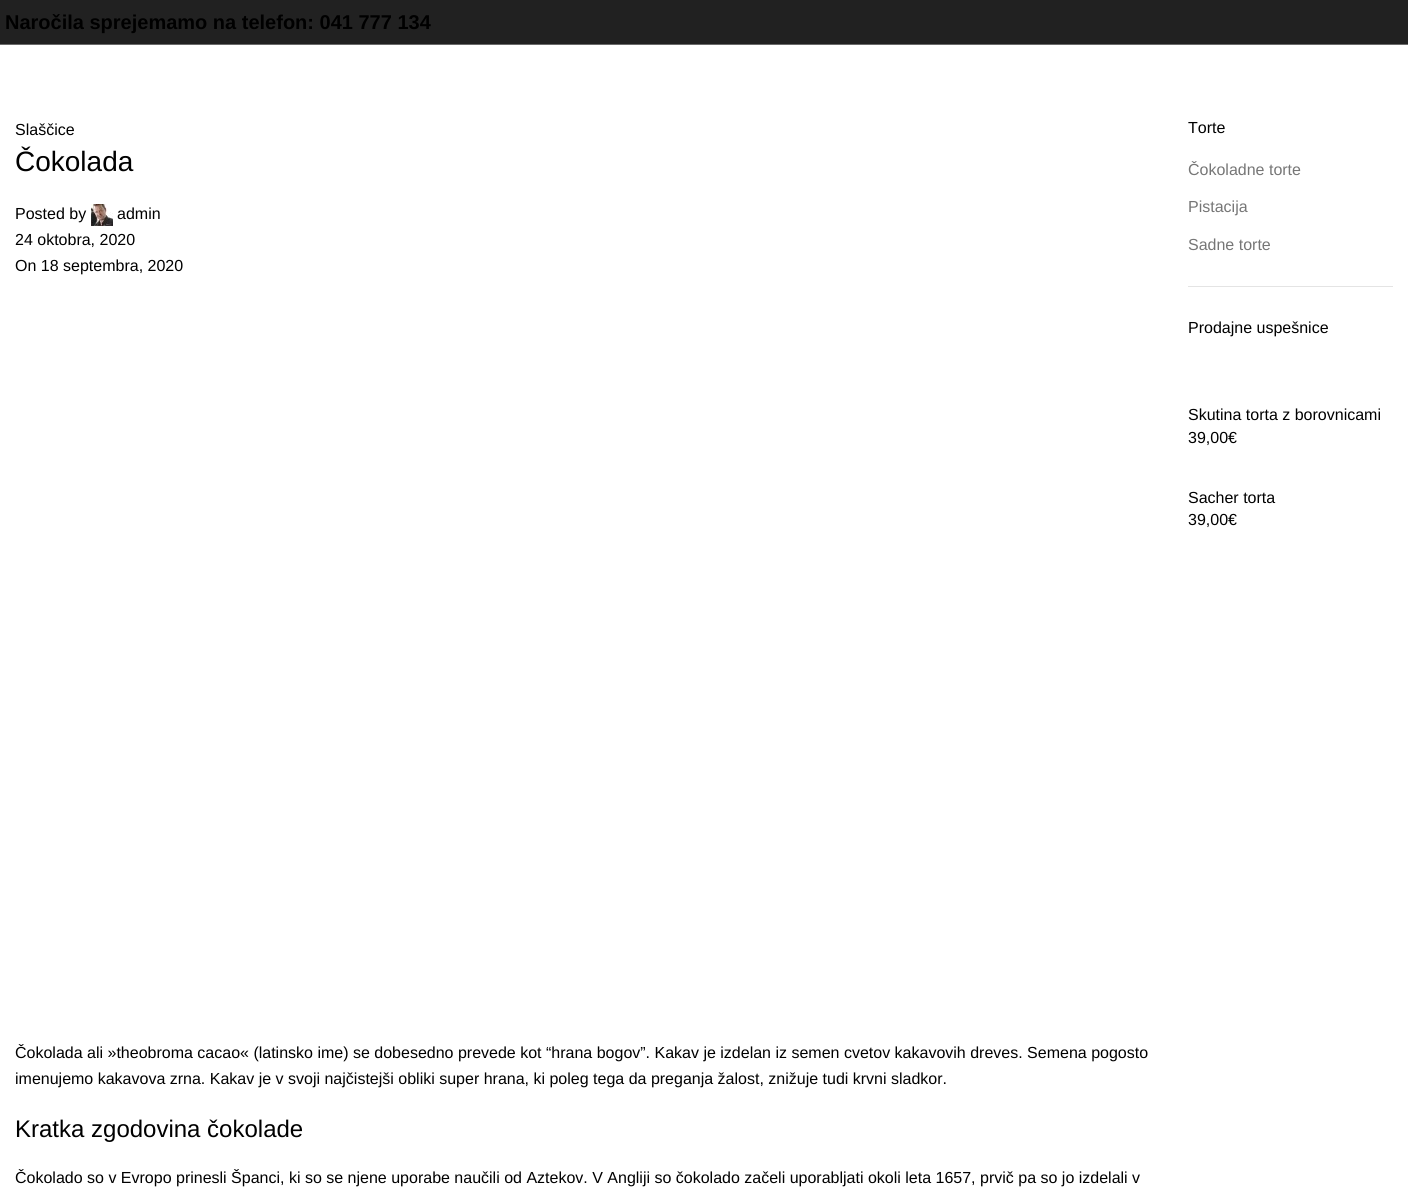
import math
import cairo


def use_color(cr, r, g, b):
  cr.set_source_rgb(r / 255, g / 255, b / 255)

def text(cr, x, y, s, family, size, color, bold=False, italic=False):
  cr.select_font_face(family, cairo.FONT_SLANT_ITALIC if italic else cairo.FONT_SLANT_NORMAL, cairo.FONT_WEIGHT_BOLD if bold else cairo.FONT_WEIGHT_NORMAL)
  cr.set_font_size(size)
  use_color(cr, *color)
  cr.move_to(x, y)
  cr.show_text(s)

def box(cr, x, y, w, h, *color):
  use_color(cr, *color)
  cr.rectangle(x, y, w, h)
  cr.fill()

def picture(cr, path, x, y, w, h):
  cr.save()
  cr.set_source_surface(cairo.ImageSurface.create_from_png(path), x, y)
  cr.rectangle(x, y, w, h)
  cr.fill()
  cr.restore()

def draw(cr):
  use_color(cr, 255, 255, 255)
  cr.paint()
  box(cr, 0, 0, 1408, 44, 33, 33, 33)
  box(cr, 0, 44, 1408, 1, 106, 106, 106)
  picture(cr, "img_01.png", 91, 204, 22, 22)
  box(cr, 1188, 286, 205, 1, 228, 228, 228)
  text(cr, 5, 29, "Naročila sprejemamo na telefon: 041 777 134", "Liberation Sans", 20, (0, 0, 0), bold=True)
  text(cr, 15, 135, "Slaščice", "Liberation Sans", 16, (0, 0, 0))
  text(cr, 15, 171, "Čokolada", "Liberation Sans", 28, (0, 0, 0))
  text(cr, 15, 219, "Posted by", "Liberation Sans", 16, (0, 0, 0))
  text(cr, 117, 219, "admin", "Liberation Sans", 16, (0, 0, 0))
  text(cr, 15, 245, "24 oktobra, 2020", "Liberation Sans", 16, (0, 0, 0))
  text(cr, 15, 271, "On 18 septembra, 2020", "Liberation Sans", 16, (0, 0, 0))
  text(cr, 15, 1058, "Čokolada ali »theobroma cacao« (latinsko ime) se dobesedno prevede kot “hrana bogov”. Kakav je izdelan iz semen cvetov kakavovih dreves. Semena pogosto", "Liberation Sans", 16, (0, 0, 0))
  text(cr, 15, 1084, "imenujemo kakavova zrna. Kakav je v svoji najčistejši obliki super hrana, ki poleg tega da preganja žalost, znižuje tudi krvni sladkor.", "Liberation Sans", 16, (0, 0, 0))
  text(cr, 15, 1137, "Kratka zgodovina čokolade", "Liberation Sans", 24, (0, 0, 0))
  text(cr, 15, 1183, "Čokolado so v Evropo prinesli Španci, ki so se njene uporabe naučili od Aztekov. V Angliji so čokolado začeli uporabljati okoli leta 1657, prvič pa so jo izdelali v", "Liberation Sans", 16, (0, 0, 0))
  text(cr, 1188, 133, "Torte", "Liberation Sans", 16, (0, 0, 0))
  text(cr, 1188, 175, "Čokoladne torte", "Liberation Sans", 16, (118, 118, 118))
  text(cr, 1188, 212, "Pistacija", "Liberation Sans", 16, (118, 118, 118))
  text(cr, 1188, 250, "Sadne torte", "Liberation Sans", 16, (118, 118, 118))
  text(cr, 1188, 333, "Prodajne uspešnice", "Liberation Sans", 16, (0, 0, 0))
  text(cr, 1188, 420, "Skutina torta z borovnicami", "Liberation Sans", 16, (0, 0, 0))
  text(cr, 1188, 443, "39,00€", "Liberation Sans", 16, (0, 0, 0))
  text(cr, 1188, 503, "Sacher torta", "Liberation Sans", 16, (0, 0, 0))
  text(cr, 1188, 525, "39,00€", "Liberation Sans", 16, (0, 0, 0))


surface = cairo.ImageSurface(cairo.FORMAT_RGB24, 1408, 1202)
cr = cairo.Context(surface)
options = cairo.FontOptions()
options.set_hint_metrics(cairo.HINT_METRICS_OFF)
options.set_hint_style(cairo.HINT_STYLE_NONE)
cr.set_font_options(options)
cr.set_miter_limit(4)
draw(cr)
surface.write_to_png("out.png")
